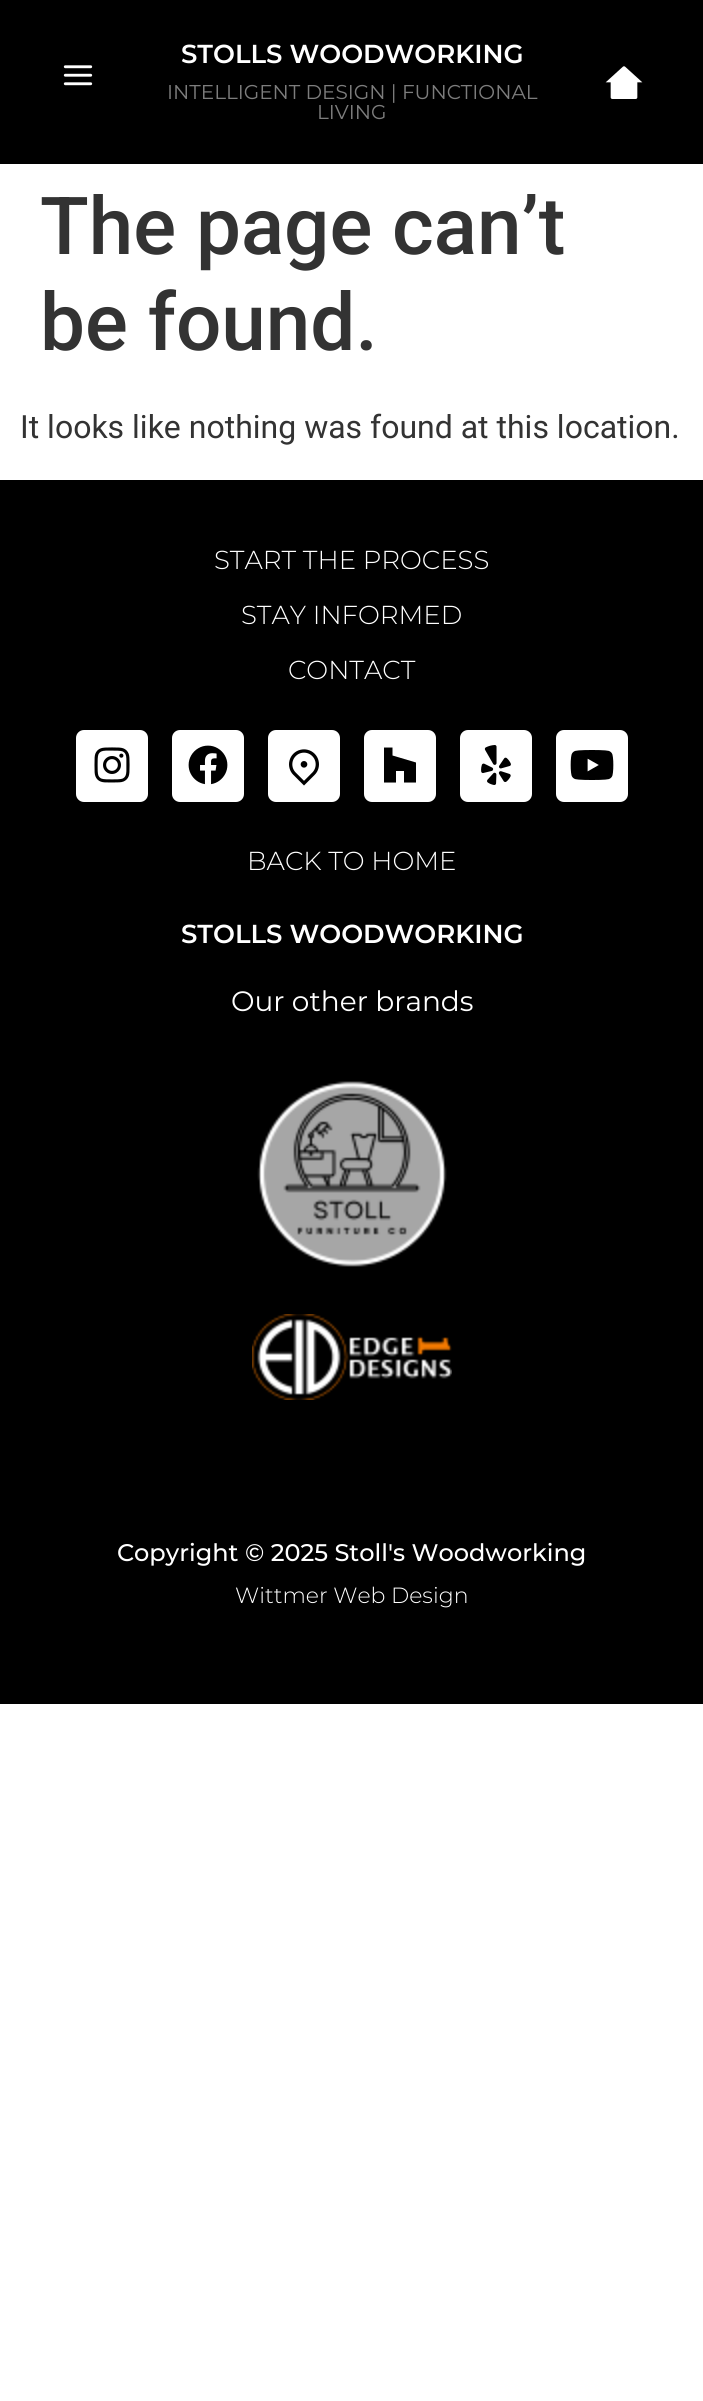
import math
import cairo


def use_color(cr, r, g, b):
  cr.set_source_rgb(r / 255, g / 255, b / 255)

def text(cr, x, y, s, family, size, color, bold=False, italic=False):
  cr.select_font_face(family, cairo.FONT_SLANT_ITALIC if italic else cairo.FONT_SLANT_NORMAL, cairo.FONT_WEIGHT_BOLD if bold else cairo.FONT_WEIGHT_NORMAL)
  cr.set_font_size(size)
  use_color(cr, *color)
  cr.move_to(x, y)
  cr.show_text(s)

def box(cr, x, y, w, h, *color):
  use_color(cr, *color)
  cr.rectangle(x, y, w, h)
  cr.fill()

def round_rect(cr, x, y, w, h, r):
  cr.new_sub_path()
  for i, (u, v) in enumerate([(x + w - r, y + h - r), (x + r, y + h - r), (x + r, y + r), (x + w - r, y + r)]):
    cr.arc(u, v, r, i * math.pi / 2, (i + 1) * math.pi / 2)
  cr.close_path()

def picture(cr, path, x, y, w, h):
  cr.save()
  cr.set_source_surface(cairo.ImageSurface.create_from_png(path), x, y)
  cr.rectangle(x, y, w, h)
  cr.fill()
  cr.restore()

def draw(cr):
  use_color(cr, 255, 255, 255)
  cr.paint()
  box(cr, 0, 0, 703, 164, 0, 0, 0)
  picture(cr, "img_01.png", 63, 65, 30, 21)
  picture(cr, "img_02.png", 605, 66, 38, 33)
  box(cr, 0, 480, 703, 1224, 0, 0, 0)
  use_color(cr, 255, 255, 255)
  round_rect(cr, 76, 730, 72, 72, 8)
  cr.fill()
  picture(cr, "img_03.png", 94, 747, 36, 36)
  round_rect(cr, 172, 730, 72, 72, 8)
  cr.fill()
  picture(cr, "img_04.png", 188, 745, 40, 40)
  round_rect(cr, 268, 730, 72, 72, 8)
  cr.fill()
  picture(cr, "img_05.png", 289, 749, 30, 37)
  round_rect(cr, 364, 730, 72, 72, 8)
  cr.fill()
  use_color(cr, 0, 0, 0)
  cr.new_path()
  cr.move_to(404, 771)
  cr.line_to(396, 771)
  cr.line_to(396, 782.5)
  cr.line_to(384, 782.5)
  cr.line_to(384, 747.5)
  cr.line_to(392.5, 747.5)
  cr.line_to(392.5, 755.5)
  cr.line_to(416, 762.5)
  cr.line_to(416, 782.5)
  cr.line_to(404, 782.5)
  cr.close_path()
  cr.fill()
  use_color(cr, 255, 255, 255)
  round_rect(cr, 460, 730, 72, 72, 8)
  cr.fill()
  picture(cr, "img_06.png", 481, 745, 30, 40)
  round_rect(cr, 556, 730, 72, 72, 8)
  cr.fill()
  picture(cr, "img_07.png", 570, 750, 44, 30)
  picture(cr, "img_08.png", 257, 1081, 190, 186)
  picture(cr, "img_09.png", 252, 1314, 200, 86)
  text(cr, 181, 63, "STOLLS WOODWORKING", "Montserrat SemiBold", 26, (255, 255, 255))
  text(cr, 167, 99, "INTELLIGENT DESIGN | FUNCTIONAL", "Montserrat", 20, (125, 125, 125))
  text(cr, 317, 119, "LIVING", "Montserrat", 20, (125, 125, 125))
  text(cr, 40, 254, "The page can’t", "Roboto Medium", 80, (51, 51, 51))
  text(cr, 40, 350, "be found.", "Roboto Medium", 80, (51, 51, 51))
  text(cr, 20, 438, "It looks like nothing was found at this location.", "Roboto", 32, (51, 51, 51))
  text(cr, 214, 569, "START THE PROCESS", "Montserrat Light", 26, (255, 255, 255))
  text(cr, 241, 624, "STAY INFORMED", "Montserrat Light", 26, (255, 255, 255))
  text(cr, 288, 679, "CONTACT", "Montserrat Light", 26, (255, 255, 255))
  text(cr, 247, 870, "BACK TO HOME", "Montserrat Light", 26, (255, 255, 255))
  text(cr, 181, 943, "STOLLS WOODWORKING", "Montserrat SemiBold", 26, (255, 255, 255))
  text(cr, 231, 1011, "Our other brands", "Montserrat", 28, (255, 255, 255))
  text(cr, 117, 1561, "Copyright © 2025 Stoll's Woodworking", "Montserrat Medium", 24, (255, 255, 255))
  text(cr, 235, 1603, "Wittmer Web Design", "Montserrat Light", 22, (255, 255, 255))


surface = cairo.ImageSurface(cairo.FORMAT_RGB24, 703, 2401)
cr = cairo.Context(surface)
options = cairo.FontOptions()
options.set_hint_metrics(cairo.HINT_METRICS_OFF)
options.set_hint_style(cairo.HINT_STYLE_NONE)
cr.set_font_options(options)
cr.set_miter_limit(4)
draw(cr)
surface.write_to_png("out.png")
